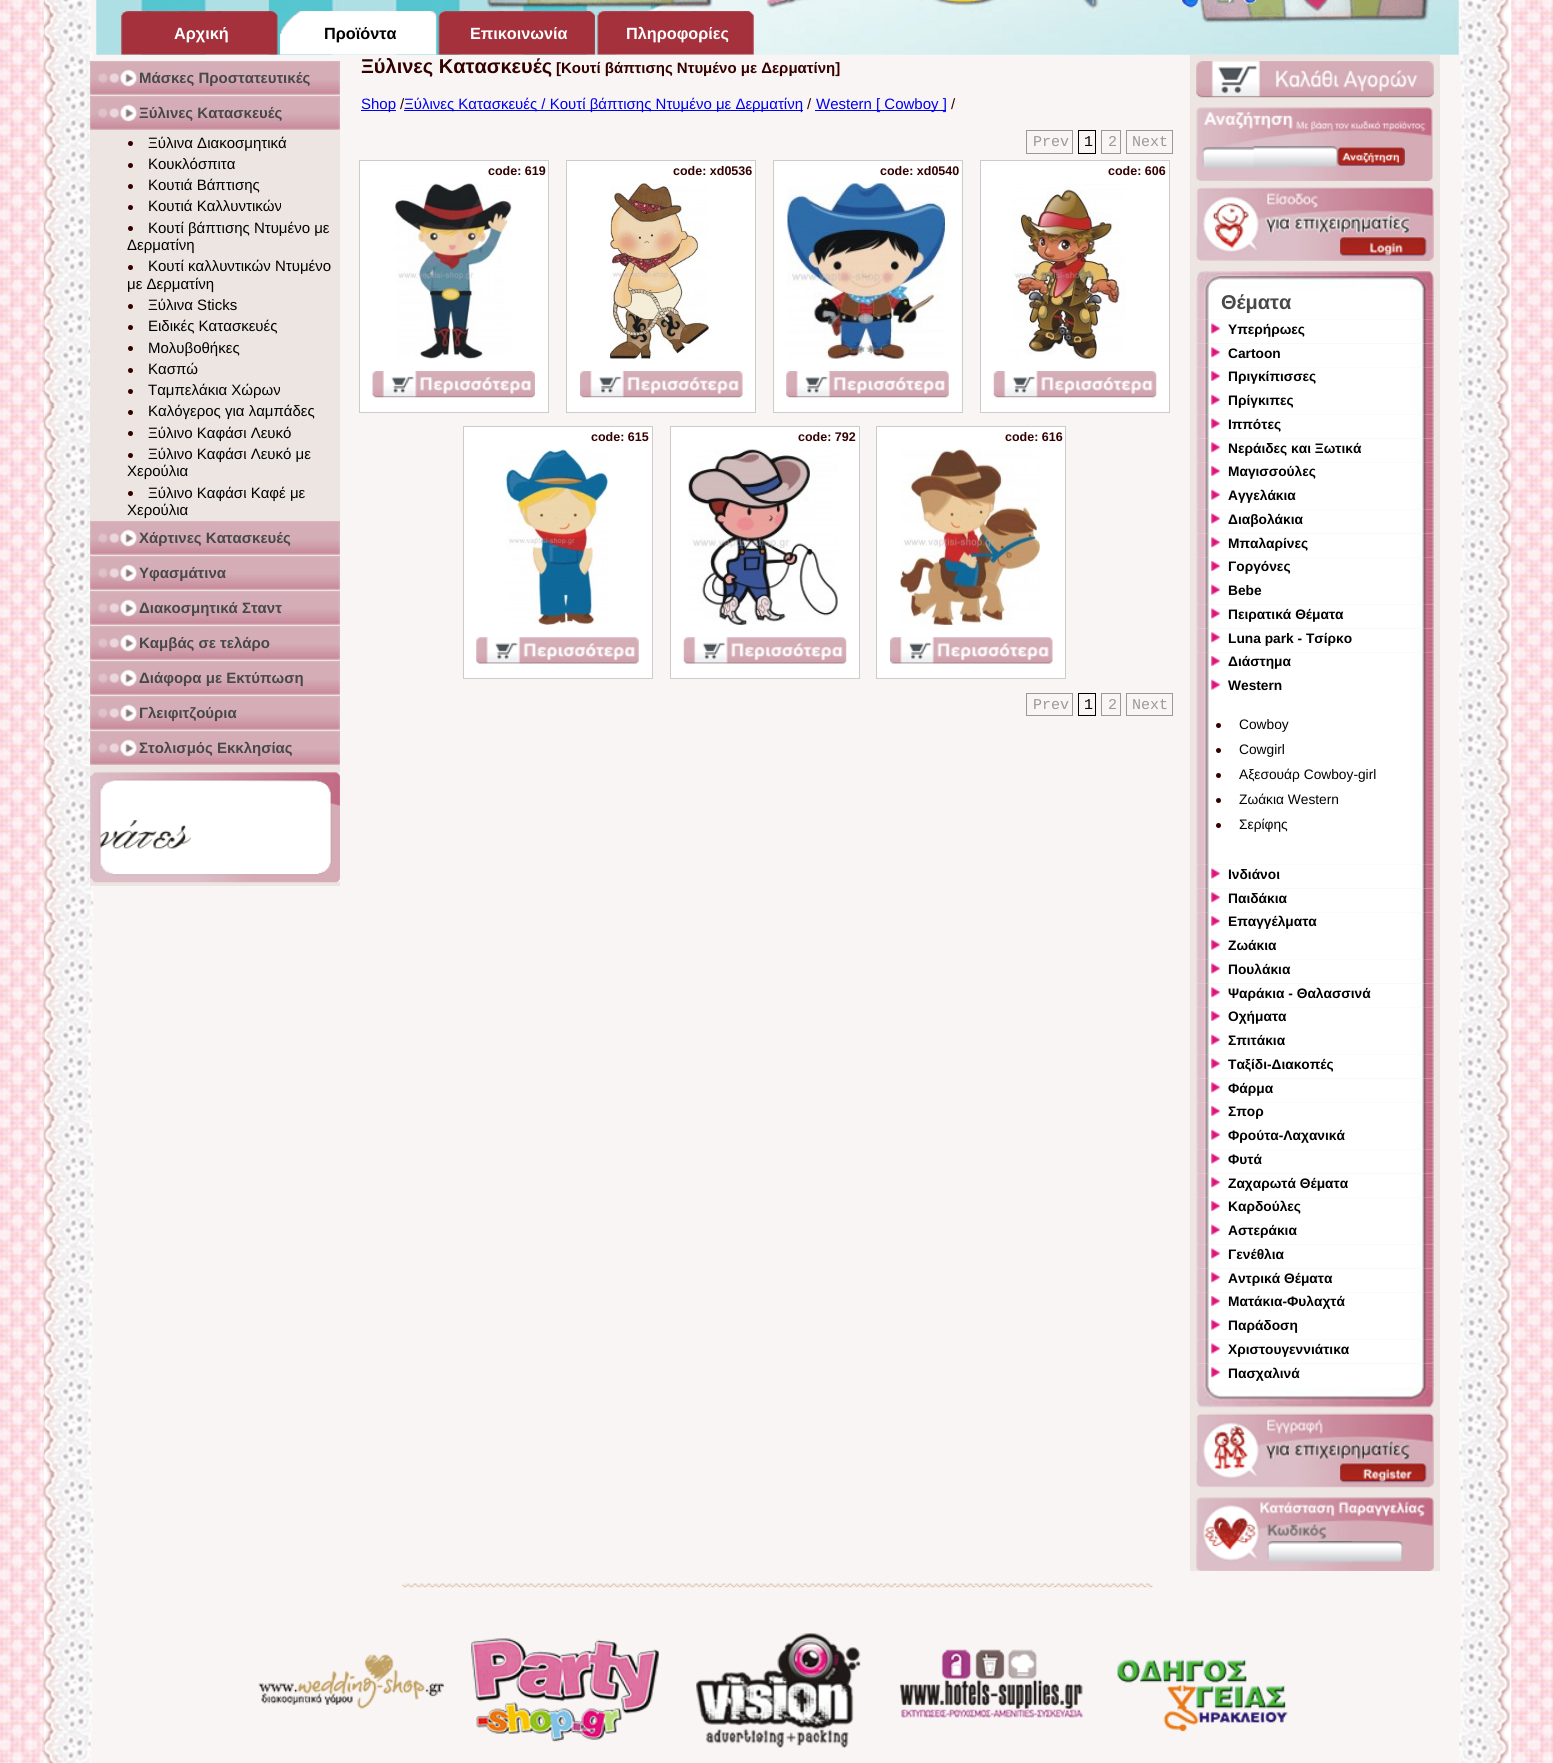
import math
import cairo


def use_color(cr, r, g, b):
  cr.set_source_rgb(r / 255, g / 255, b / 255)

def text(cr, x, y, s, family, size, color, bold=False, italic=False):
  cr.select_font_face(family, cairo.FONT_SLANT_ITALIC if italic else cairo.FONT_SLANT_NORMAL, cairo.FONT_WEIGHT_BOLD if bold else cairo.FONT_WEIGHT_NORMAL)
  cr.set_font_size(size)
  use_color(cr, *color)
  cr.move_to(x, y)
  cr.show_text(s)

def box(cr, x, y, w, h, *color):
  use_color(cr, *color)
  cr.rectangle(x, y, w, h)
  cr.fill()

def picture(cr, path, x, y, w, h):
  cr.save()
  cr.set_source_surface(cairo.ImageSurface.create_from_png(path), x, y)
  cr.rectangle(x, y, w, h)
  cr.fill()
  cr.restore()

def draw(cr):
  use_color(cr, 255, 255, 255)
  cr.paint()
  picture(cr, "img_01.png", 0, 0, 1553, 1763)
  picture(cr, "img_02.png", 43, 0, 1469, 1763)
  picture(cr, "img_03.png", 96, 0, 1363, 55)
  picture(cr, "img_04.png", 1181, 0, 76, 8)
  picture(cr, "img_05.png", 121, 11, 157, 44)
  picture(cr, "img_06.png", 280, 11, 157, 44)
  picture(cr, "img_07.png", 438, 11, 157, 44)
  picture(cr, "img_08.png", 597, 11, 157, 44)
  box(cr, 90, 61, 250, 825, 236, 229, 225)
  picture(cr, "img_09.png", 90, 61, 250, 34)
  picture(cr, "img_09.png", 90, 96, 250, 34)
  use_color(cr, 51, 0, 0)
  cr.arc(130.5, 143.5, 2.5, 0, 2 * math.pi)
  cr.fill()
  cr.arc(130.5, 165.5, 2.5, 0, 2 * math.pi)
  cr.fill()
  cr.arc(130.5, 186.5, 2.5, 0, 2 * math.pi)
  cr.fill()
  cr.arc(130.5, 207.5, 2.5, 0, 2 * math.pi)
  cr.fill()
  cr.arc(130.5, 228.5, 2.5, 0, 2 * math.pi)
  cr.fill()
  cr.arc(130.5, 267.5, 2.5, 0, 2 * math.pi)
  cr.fill()
  cr.arc(130.5, 306.5, 2.5, 0, 2 * math.pi)
  cr.fill()
  cr.arc(130.5, 327.5, 2.5, 0, 2 * math.pi)
  cr.fill()
  cr.arc(130.5, 348.5, 2.5, 0, 2 * math.pi)
  cr.fill()
  cr.arc(130.5, 370.5, 2.5, 0, 2 * math.pi)
  cr.fill()
  cr.arc(130.5, 391.5, 2.5, 0, 2 * math.pi)
  cr.fill()
  cr.arc(130.5, 412.5, 2.5, 0, 2 * math.pi)
  cr.fill()
  cr.arc(130.5, 433.5, 2.5, 0, 2 * math.pi)
  cr.fill()
  cr.arc(130.5, 455.5, 2.5, 0, 2 * math.pi)
  cr.fill()
  cr.arc(130.5, 493.5, 2.5, 0, 2 * math.pi)
  cr.fill()
  picture(cr, "img_09.png", 90, 521, 250, 34)
  picture(cr, "img_09.png", 90, 556, 250, 34)
  picture(cr, "img_09.png", 90, 591, 250, 34)
  picture(cr, "img_09.png", 90, 626, 250, 34)
  picture(cr, "img_09.png", 90, 661, 250, 34)
  picture(cr, "img_09.png", 90, 696, 250, 34)
  picture(cr, "img_09.png", 90, 731, 250, 34)
  picture(cr, "img_10.png", 90, 772, 250, 111)
  box(cr, 361, 110, 35, 1, 0, 0, 238)
  box(cr, 404, 110, 399, 1, 0, 0, 238)
  box(cr, 815, 110, 131, 1, 0, 0, 238)
  cr.rectangle(1026.5, 130.5, 46, 23)
  use_color(cr, 153, 153, 153)
  cr.set_line_width(1)
  cr.stroke()
  cr.rectangle(1078.5, 130.5, 17, 23)
  use_color(cr, 0, 0, 0)
  cr.stroke()
  cr.rectangle(1101.5, 130.5, 19, 23)
  use_color(cr, 153, 153, 153)
  cr.stroke()
  cr.rectangle(1126.5, 130.5, 46, 23)
  cr.stroke()
  use_color(cr, 255, 255, 255)
  cr.rectangle(359.5, 160.5, 189, 252)
  cr.fill_preserve()
  use_color(cr, 204, 204, 204)
  cr.stroke()
  picture(cr, "img_11.png", 395, 183, 117, 176)
  picture(cr, "img_12.png", 372, 371, 163, 27)
  use_color(cr, 255, 255, 255)
  cr.rectangle(566.5, 160.5, 189, 252)
  cr.fill_preserve()
  use_color(cr, 204, 204, 204)
  cr.stroke()
  picture(cr, "img_13.png", 610, 183, 99, 176)
  picture(cr, "img_14.png", 580, 371, 163, 27)
  use_color(cr, 255, 255, 255)
  cr.rectangle(773.5, 160.5, 189, 252)
  cr.fill_preserve()
  use_color(cr, 204, 204, 204)
  cr.stroke()
  picture(cr, "img_15.png", 787, 183, 158, 176)
  picture(cr, "img_16.png", 786, 371, 163, 27)
  use_color(cr, 255, 255, 255)
  cr.rectangle(980.5, 160.5, 189, 252)
  cr.fill_preserve()
  use_color(cr, 204, 204, 204)
  cr.stroke()
  picture(cr, "img_17.png", 1011, 183, 115, 176)
  picture(cr, "img_18.png", 993, 371, 164, 27)
  use_color(cr, 255, 255, 255)
  cr.rectangle(463.5, 426.5, 189, 252)
  cr.fill_preserve()
  use_color(cr, 204, 204, 204)
  cr.stroke()
  picture(cr, "img_19.png", 506, 449, 102, 176)
  picture(cr, "img_20.png", 476, 637, 163, 27)
  use_color(cr, 255, 255, 255)
  cr.rectangle(670.5, 426.5, 189, 252)
  cr.fill_preserve()
  use_color(cr, 204, 204, 204)
  cr.stroke()
  picture(cr, "img_21.png", 688, 449, 150, 176)
  picture(cr, "img_22.png", 683, 637, 164, 27)
  use_color(cr, 255, 255, 255)
  cr.rectangle(876.5, 426.5, 189, 252)
  cr.fill_preserve()
  use_color(cr, 204, 204, 204)
  cr.stroke()
  picture(cr, "img_23.png", 900, 449, 140, 176)
  picture(cr, "img_24.png", 890, 637, 163, 27)
  cr.rectangle(1026.5, 693.5, 46, 22)
  use_color(cr, 153, 153, 153)
  cr.stroke()
  cr.rectangle(1078.5, 693.5, 17, 22)
  use_color(cr, 0, 0, 0)
  cr.stroke()
  cr.rectangle(1101.5, 693.5, 19, 22)
  use_color(cr, 153, 153, 153)
  cr.stroke()
  cr.rectangle(1126.5, 693.5, 46, 22)
  cr.stroke()
  box(cr, 1190, 55, 250, 1516, 236, 229, 225)
  picture(cr, "img_25.png", 1196, 61, 238, 37)
  picture(cr, "img_26.png", 1196, 107, 237, 74)
  picture(cr, "img_27.png", 1202, 147, 86, 22)
  picture(cr, "img_28.png", 1253, 146, 85, 21)
  picture(cr, "img_29.png", 1337, 147, 68, 19)
  picture(cr, "img_30.png", 1196, 187, 238, 74)
  picture(cr, "img_31.png", 1196, 271, 238, 20)
  picture(cr, "img_32.png", 1196, 1383, 238, 25)
  picture(cr, "img_33.png", 1196, 291, 238, 29)
  picture(cr, "img_34.png", 1196, 319, 238, 25)
  picture(cr, "img_35.png", 1211, 323, 9, 11)
  picture(cr, "img_36.png", 1196, 343, 238, 25)
  picture(cr, "img_37.png", 1211, 347, 9, 11)
  picture(cr, "img_38.png", 1196, 367, 238, 24)
  picture(cr, "img_39.png", 1211, 371, 9, 10)
  picture(cr, "img_40.png", 1196, 391, 238, 24)
  picture(cr, "img_41.png", 1211, 394, 9, 11)
  picture(cr, "img_42.png", 1196, 414, 238, 25)
  picture(cr, "img_35.png", 1211, 418, 9, 11)
  picture(cr, "img_43.png", 1196, 438, 238, 25)
  picture(cr, "img_37.png", 1211, 442, 9, 11)
  picture(cr, "img_44.png", 1196, 462, 238, 24)
  picture(cr, "img_39.png", 1211, 466, 9, 10)
  picture(cr, "img_45.png", 1196, 486, 238, 24)
  picture(cr, "img_41.png", 1211, 489, 9, 11)
  picture(cr, "img_46.png", 1196, 509, 238, 25)
  picture(cr, "img_35.png", 1211, 513, 9, 11)
  picture(cr, "img_47.png", 1196, 533, 238, 25)
  picture(cr, "img_37.png", 1211, 537, 9, 11)
  picture(cr, "img_48.png", 1196, 557, 238, 24)
  picture(cr, "img_39.png", 1211, 561, 9, 10)
  picture(cr, "img_49.png", 1196, 581, 238, 24)
  picture(cr, "img_41.png", 1211, 584, 9, 11)
  picture(cr, "img_50.png", 1196, 604, 238, 25)
  picture(cr, "img_35.png", 1211, 608, 9, 11)
  picture(cr, "img_51.png", 1196, 628, 238, 25)
  picture(cr, "img_37.png", 1211, 632, 9, 11)
  picture(cr, "img_52.png", 1196, 652, 238, 24)
  picture(cr, "img_39.png", 1211, 656, 9, 10)
  picture(cr, "img_53.png", 1196, 676, 238, 189)
  picture(cr, "img_41.png", 1211, 679, 9, 11)
  use_color(cr, 51, 0, 0)
  cr.arc(1218.5, 725.5, 2.5, 0, 2 * math.pi)
  cr.fill()
  cr.arc(1218.5, 750.5, 2.5, 0, 2 * math.pi)
  cr.fill()
  cr.arc(1218.5, 775.5, 2.5, 0, 2 * math.pi)
  cr.fill()
  cr.arc(1218.5, 800.5, 2.5, 0, 2 * math.pi)
  cr.fill()
  cr.arc(1218.5, 825.5, 2.5, 0, 2 * math.pi)
  cr.fill()
  picture(cr, "img_54.png", 1196, 864, 238, 25)
  picture(cr, "img_35.png", 1211, 868, 9, 11)
  picture(cr, "img_55.png", 1196, 888, 238, 25)
  picture(cr, "img_37.png", 1211, 892, 9, 11)
  picture(cr, "img_56.png", 1196, 912, 238, 24)
  picture(cr, "img_39.png", 1211, 916, 9, 10)
  picture(cr, "img_57.png", 1196, 936, 238, 24)
  picture(cr, "img_41.png", 1211, 939, 9, 11)
  picture(cr, "img_58.png", 1196, 959, 238, 25)
  picture(cr, "img_35.png", 1211, 963, 9, 11)
  picture(cr, "img_59.png", 1196, 983, 238, 25)
  picture(cr, "img_37.png", 1211, 987, 9, 11)
  picture(cr, "img_60.png", 1196, 1007, 238, 24)
  picture(cr, "img_39.png", 1211, 1011, 9, 10)
  picture(cr, "img_61.png", 1196, 1031, 238, 24)
  picture(cr, "img_41.png", 1211, 1034, 9, 11)
  picture(cr, "img_62.png", 1196, 1054, 238, 25)
  picture(cr, "img_35.png", 1211, 1058, 9, 11)
  picture(cr, "img_63.png", 1196, 1078, 238, 25)
  picture(cr, "img_37.png", 1211, 1082, 9, 11)
  picture(cr, "img_64.png", 1196, 1102, 238, 24)
  picture(cr, "img_39.png", 1211, 1106, 9, 10)
  picture(cr, "img_65.png", 1196, 1126, 238, 24)
  picture(cr, "img_41.png", 1211, 1129, 9, 11)
  picture(cr, "img_66.png", 1196, 1149, 238, 25)
  picture(cr, "img_35.png", 1211, 1153, 9, 11)
  picture(cr, "img_67.png", 1196, 1173, 238, 25)
  picture(cr, "img_37.png", 1211, 1177, 9, 11)
  picture(cr, "img_68.png", 1196, 1197, 238, 24)
  picture(cr, "img_39.png", 1211, 1201, 9, 10)
  picture(cr, "img_69.png", 1196, 1221, 238, 24)
  picture(cr, "img_41.png", 1211, 1224, 9, 11)
  picture(cr, "img_70.png", 1196, 1244, 238, 25)
  picture(cr, "img_35.png", 1211, 1248, 9, 11)
  picture(cr, "img_71.png", 1196, 1268, 238, 25)
  picture(cr, "img_37.png", 1211, 1272, 9, 11)
  picture(cr, "img_64.png", 1196, 1292, 238, 24)
  picture(cr, "img_39.png", 1211, 1296, 9, 10)
  picture(cr, "img_65.png", 1196, 1316, 238, 24)
  picture(cr, "img_41.png", 1211, 1319, 9, 11)
  picture(cr, "img_72.png", 1196, 1339, 238, 25)
  picture(cr, "img_35.png", 1211, 1343, 9, 11)
  picture(cr, "img_73.png", 1196, 1363, 238, 25)
  picture(cr, "img_37.png", 1211, 1367, 9, 11)
  picture(cr, "img_74.png", 1196, 1413, 238, 75)
  picture(cr, "img_75.png", 1196, 1497, 238, 74)
  picture(cr, "img_76.png", 1267, 1541, 86, 22)
  picture(cr, "img_77.png", 1318, 1541, 85, 22)
  picture(cr, "img_78.png", 402, 1583, 751, 5)
  picture(cr, "img_79.png", 258, 1654, 186, 55)
  picture(cr, "img_80.png", 471, 1638, 188, 104)
  picture(cr, "img_81.png", 696, 1633, 165, 115)
  picture(cr, "img_82.png", 899, 1649, 184, 69)
  picture(cr, "img_83.png", 1117, 1659, 171, 73)
  text(cr, 174, 39, "Αρχική", "Liberation Sans", 16.25, (255, 255, 255), bold=True)
  text(cr, 324, 39, "Προϊόντα", "Liberation Sans", 16.25, (0, 0, 0), bold=True)
  text(cr, 470, 39, "Επικοινωνία", "Liberation Sans", 16.25, (255, 255, 255), bold=True)
  text(cr, 626, 39, "Πληροφορίες", "Liberation Sans", 16.25, (255, 255, 255), bold=True)
  text(cr, 139, 83, "Μάσκες Προστατευτικές", "Liberation Sans", 15, (72, 72, 72), bold=True)
  text(cr, 139, 118, "Ξύλινες Κατασκευές", "Liberation Sans", 15, (72, 72, 72), bold=True)
  text(cr, 148, 148, "Ξύλινα Διακοσμητικά", "Liberation Sans", 15, (0, 0, 0))
  text(cr, 148, 169, "Κουκλόσπιτα", "Liberation Sans", 15, (0, 0, 0))
  text(cr, 148, 190, "Κουτιά Βάπτισης", "Liberation Sans", 15, (0, 0, 0))
  text(cr, 148, 211, "Κουτιά Καλλυντικών", "Liberation Sans", 15, (0, 0, 0))
  text(cr, 148, 233, "Κουτί βάπτισης Ντυμένο με", "Liberation Sans", 15, (0, 0, 0))
  text(cr, 127, 250, "Δερματίνη", "Liberation Sans", 15, (0, 0, 0))
  text(cr, 148, 271, "Κουτί καλλυντικών Ντυμένο", "Liberation Sans", 15, (0, 0, 0))
  text(cr, 127, 289, "με Δερματίνη", "Liberation Sans", 15, (0, 0, 0))
  text(cr, 148, 310, "Ξύλινα Sticks", "Liberation Sans", 15, (0, 0, 0))
  text(cr, 148, 331, "Ειδικές Κατασκευές", "Liberation Sans", 15, (0, 0, 0))
  text(cr, 148, 353, "Μολυβοθήκες", "Liberation Sans", 15, (0, 0, 0))
  text(cr, 148, 374, "Κασπώ", "Liberation Sans", 15, (0, 0, 0))
  text(cr, 148, 395, "Ταμπελάκια Χώρων", "Liberation Sans", 15, (0, 0, 0))
  text(cr, 148, 416, "Καλόγερος για λαμπάδες", "Liberation Sans", 15, (0, 0, 0))
  text(cr, 148, 438, "Ξύλινο Καφάσι Λευκό", "Liberation Sans", 15, (0, 0, 0))
  text(cr, 148, 459, "Ξύλινο Καφάσι Λευκό με", "Liberation Sans", 15, (0, 0, 0))
  text(cr, 127, 476, "Χερούλια", "Liberation Sans", 15, (0, 0, 0))
  text(cr, 148, 498, "Ξύλινο Καφάσι Καφέ με", "Liberation Sans", 15, (0, 0, 0))
  text(cr, 127, 515, "Χερούλια", "Liberation Sans", 15, (0, 0, 0))
  text(cr, 139, 543, "Χάρτινες Κατασκευές", "Liberation Sans", 15, (72, 72, 72), bold=True)
  text(cr, 139, 578, "Υφασμάτινα", "Liberation Sans", 15, (72, 72, 72), bold=True)
  text(cr, 139, 613, "Διακοσμητικά Σταντ", "Liberation Sans", 15, (72, 72, 72), bold=True)
  text(cr, 139, 648, "Καμβάς σε τελάρο", "Liberation Sans", 15, (72, 72, 72), bold=True)
  text(cr, 139, 683, "Διάφορα με Εκτύπωση", "Liberation Sans", 15, (72, 72, 72), bold=True)
  text(cr, 139, 718, "Γλειφιτζούρια", "Liberation Sans", 15, (72, 72, 72), bold=True)
  text(cr, 139, 753, "Στολισμός Εκκλησίας", "Liberation Sans", 15, (72, 72, 72), bold=True)
  text(cr, 361, 73, "Ξύλινες Κατασκευές", "Liberation Sans", 20, (51, 0, 0), bold=True)
  text(cr, 556, 73, "[Κουτί βάπτισης Ντυμένο με Δερματίνη]", "Liberation Sans", 15, (51, 0, 0), bold=True)
  text(cr, 361, 109, "Shop", "Liberation Sans", 15, (0, 0, 238))
  text(cr, 400, 109, "/", "Liberation Sans", 15, (51, 0, 0))
  text(cr, 404, 109, "Ξύλινες Κατασκευές / Κουτί βάπτισης Ντυμένο με Δερματίνη", "Liberation Sans", 15, (0, 0, 238))
  text(cr, 807, 109, "/", "Liberation Sans", 15, (51, 0, 0))
  text(cr, 816, 109, "Western [ Cowboy ]", "Liberation Sans", 15, (0, 0, 238))
  text(cr, 951, 109, "/", "Liberation Sans", 15, (51, 0, 0))
  text(cr, 1033, 146, "Prev", "Liberation Mono", 15, (153, 153, 153))
  text(cr, 1084, 146, "1", "Liberation Mono", 15, (0, 0, 0))
  text(cr, 1108, 146, "2", "Liberation Mono", 15, (153, 153, 153))
  text(cr, 1132, 146, "Next", "Liberation Mono", 15, (153, 153, 153))
  text(cr, 488, 175, "code: 619", "Liberation Sans", 12.5, (51, 0, 0), bold=True)
  text(cr, 673, 175, "code: xd0536", "Liberation Sans", 12.5, (51, 0, 0), bold=True)
  text(cr, 880, 175, "code: xd0540", "Liberation Sans", 12.5, (51, 0, 0), bold=True)
  text(cr, 1108, 175, "code: 606", "Liberation Sans", 12.5, (51, 0, 0), bold=True)
  text(cr, 591, 441, "code: 615", "Liberation Sans", 12.5, (51, 0, 0), bold=True)
  text(cr, 798, 441, "code: 792", "Liberation Sans", 12.5, (51, 0, 0), bold=True)
  text(cr, 1005, 441, "code: 616", "Liberation Sans", 12.5, (51, 0, 0), bold=True)
  text(cr, 1033, 709, "Prev", "Liberation Mono", 15, (153, 153, 153))
  text(cr, 1084, 709, "1", "Liberation Mono", 15, (0, 0, 0))
  text(cr, 1108, 709, "2", "Liberation Mono", 15, (153, 153, 153))
  text(cr, 1132, 709, "Next", "Liberation Mono", 15, (153, 153, 153))
  text(cr, 1221, 309, "Θέματα", "Liberation Sans", 20, (72, 72, 72), bold=True)
  text(cr, 1228, 334, "Υπερήρωες", "Liberation Sans", 13.75, (0, 0, 0), bold=True)
  text(cr, 1228, 358, "Cartoon", "Liberation Sans", 13.75, (0, 0, 0), bold=True)
  text(cr, 1228, 381, "Πριγκίπισσες", "Liberation Sans", 13.75, (0, 0, 0), bold=True)
  text(cr, 1228, 405, "Πρίγκιπες", "Liberation Sans", 13.75, (0, 0, 0), bold=True)
  text(cr, 1228, 429, "Ιππότες", "Liberation Sans", 13.75, (0, 0, 0), bold=True)
  text(cr, 1228, 453, "Νεράιδες και Ξωτικά", "Liberation Sans", 13.75, (0, 0, 0), bold=True)
  text(cr, 1228, 476, "Μαγισσούλες", "Liberation Sans", 13.75, (0, 0, 0), bold=True)
  text(cr, 1228, 500, "Αγγελάκια", "Liberation Sans", 13.75, (0, 0, 0), bold=True)
  text(cr, 1228, 524, "Διαβολάκια", "Liberation Sans", 13.75, (0, 0, 0), bold=True)
  text(cr, 1228, 548, "Μπαλαρίνες", "Liberation Sans", 13.75, (0, 0, 0), bold=True)
  text(cr, 1228, 571, "Γοργόνες", "Liberation Sans", 13.75, (0, 0, 0), bold=True)
  text(cr, 1228, 595, "Bebe", "Liberation Sans", 13.75, (0, 0, 0), bold=True)
  text(cr, 1228, 619, "Πειρατικά Θέματα", "Liberation Sans", 13.75, (0, 0, 0), bold=True)
  text(cr, 1228, 643, "Luna park - Τσίρκο", "Liberation Sans", 13.75, (0, 0, 0), bold=True)
  text(cr, 1228, 666, "Διάστημα", "Liberation Sans", 13.75, (0, 0, 0), bold=True)
  text(cr, 1228, 690, "Western", "Liberation Sans", 13.75, (0, 0, 0), bold=True)
  text(cr, 1239, 729, "Cowboy", "Liberation Sans", 13.75, (0, 0, 0))
  text(cr, 1239, 754, "Cowgirl", "Liberation Sans", 13.75, (0, 0, 0))
  text(cr, 1239, 779, "Αξεσουάρ Cowboy-girl", "Liberation Sans", 13.75, (0, 0, 0))
  text(cr, 1239, 804, "Ζωάκια Western", "Liberation Sans", 13.75, (0, 0, 0))
  text(cr, 1239, 829, "Σερίφης", "Liberation Sans", 13.75, (0, 0, 0))
  text(cr, 1228, 879, "Ινδιάνοι", "Liberation Sans", 13.75, (0, 0, 0), bold=True)
  text(cr, 1228, 903, "Παιδάκια", "Liberation Sans", 13.75, (0, 0, 0), bold=True)
  text(cr, 1228, 926, "Επαγγέλματα", "Liberation Sans", 13.75, (0, 0, 0), bold=True)
  text(cr, 1228, 950, "Ζωάκια", "Liberation Sans", 13.75, (0, 0, 0), bold=True)
  text(cr, 1228, 974, "Πουλάκια", "Liberation Sans", 13.75, (0, 0, 0), bold=True)
  text(cr, 1228, 998, "Ψαράκια - Θαλασσινά", "Liberation Sans", 13.75, (0, 0, 0), bold=True)
  text(cr, 1228, 1021, "Οχήματα", "Liberation Sans", 13.75, (0, 0, 0), bold=True)
  text(cr, 1228, 1045, "Σπιτάκια", "Liberation Sans", 13.75, (0, 0, 0), bold=True)
  text(cr, 1228, 1069, "Ταξίδι-Διακοπές", "Liberation Sans", 13.75, (0, 0, 0), bold=True)
  text(cr, 1228, 1093, "Φάρμα", "Liberation Sans", 13.75, (0, 0, 0), bold=True)
  text(cr, 1228, 1116, "Σπορ", "Liberation Sans", 13.75, (0, 0, 0), bold=True)
  text(cr, 1228, 1140, "Φρούτα-Λαχανικά", "Liberation Sans", 13.75, (0, 0, 0), bold=True)
  text(cr, 1228, 1164, "Φυτά", "Liberation Sans", 13.75, (0, 0, 0), bold=True)
  text(cr, 1228, 1188, "Ζαχαρωτά Θέματα", "Liberation Sans", 13.75, (0, 0, 0), bold=True)
  text(cr, 1228, 1211, "Καρδούλες", "Liberation Sans", 13.75, (0, 0, 0), bold=True)
  text(cr, 1228, 1235, "Αστεράκια", "Liberation Sans", 13.75, (0, 0, 0), bold=True)
  text(cr, 1228, 1259, "Γενέθλια", "Liberation Sans", 13.75, (0, 0, 0), bold=True)
  text(cr, 1228, 1283, "Αντρικά Θέματα", "Liberation Sans", 13.75, (0, 0, 0), bold=True)
  text(cr, 1228, 1306, "Ματάκια-Φυλαχτά", "Liberation Sans", 13.75, (0, 0, 0), bold=True)
  text(cr, 1228, 1330, "Παράδοση", "Liberation Sans", 13.75, (0, 0, 0), bold=True)
  text(cr, 1228, 1354, "Χριστουγεννιάτικα", "Liberation Sans", 13.75, (0, 0, 0), bold=True)
  text(cr, 1228, 1378, "Πασχαλινά", "Liberation Sans", 13.75, (0, 0, 0), bold=True)


surface = cairo.ImageSurface(cairo.FORMAT_RGB24, 1553, 1763)
cr = cairo.Context(surface)
options = cairo.FontOptions()
options.set_hint_metrics(cairo.HINT_METRICS_OFF)
options.set_hint_style(cairo.HINT_STYLE_NONE)
cr.set_font_options(options)
cr.set_miter_limit(4)
draw(cr)
surface.write_to_png("out.png")
